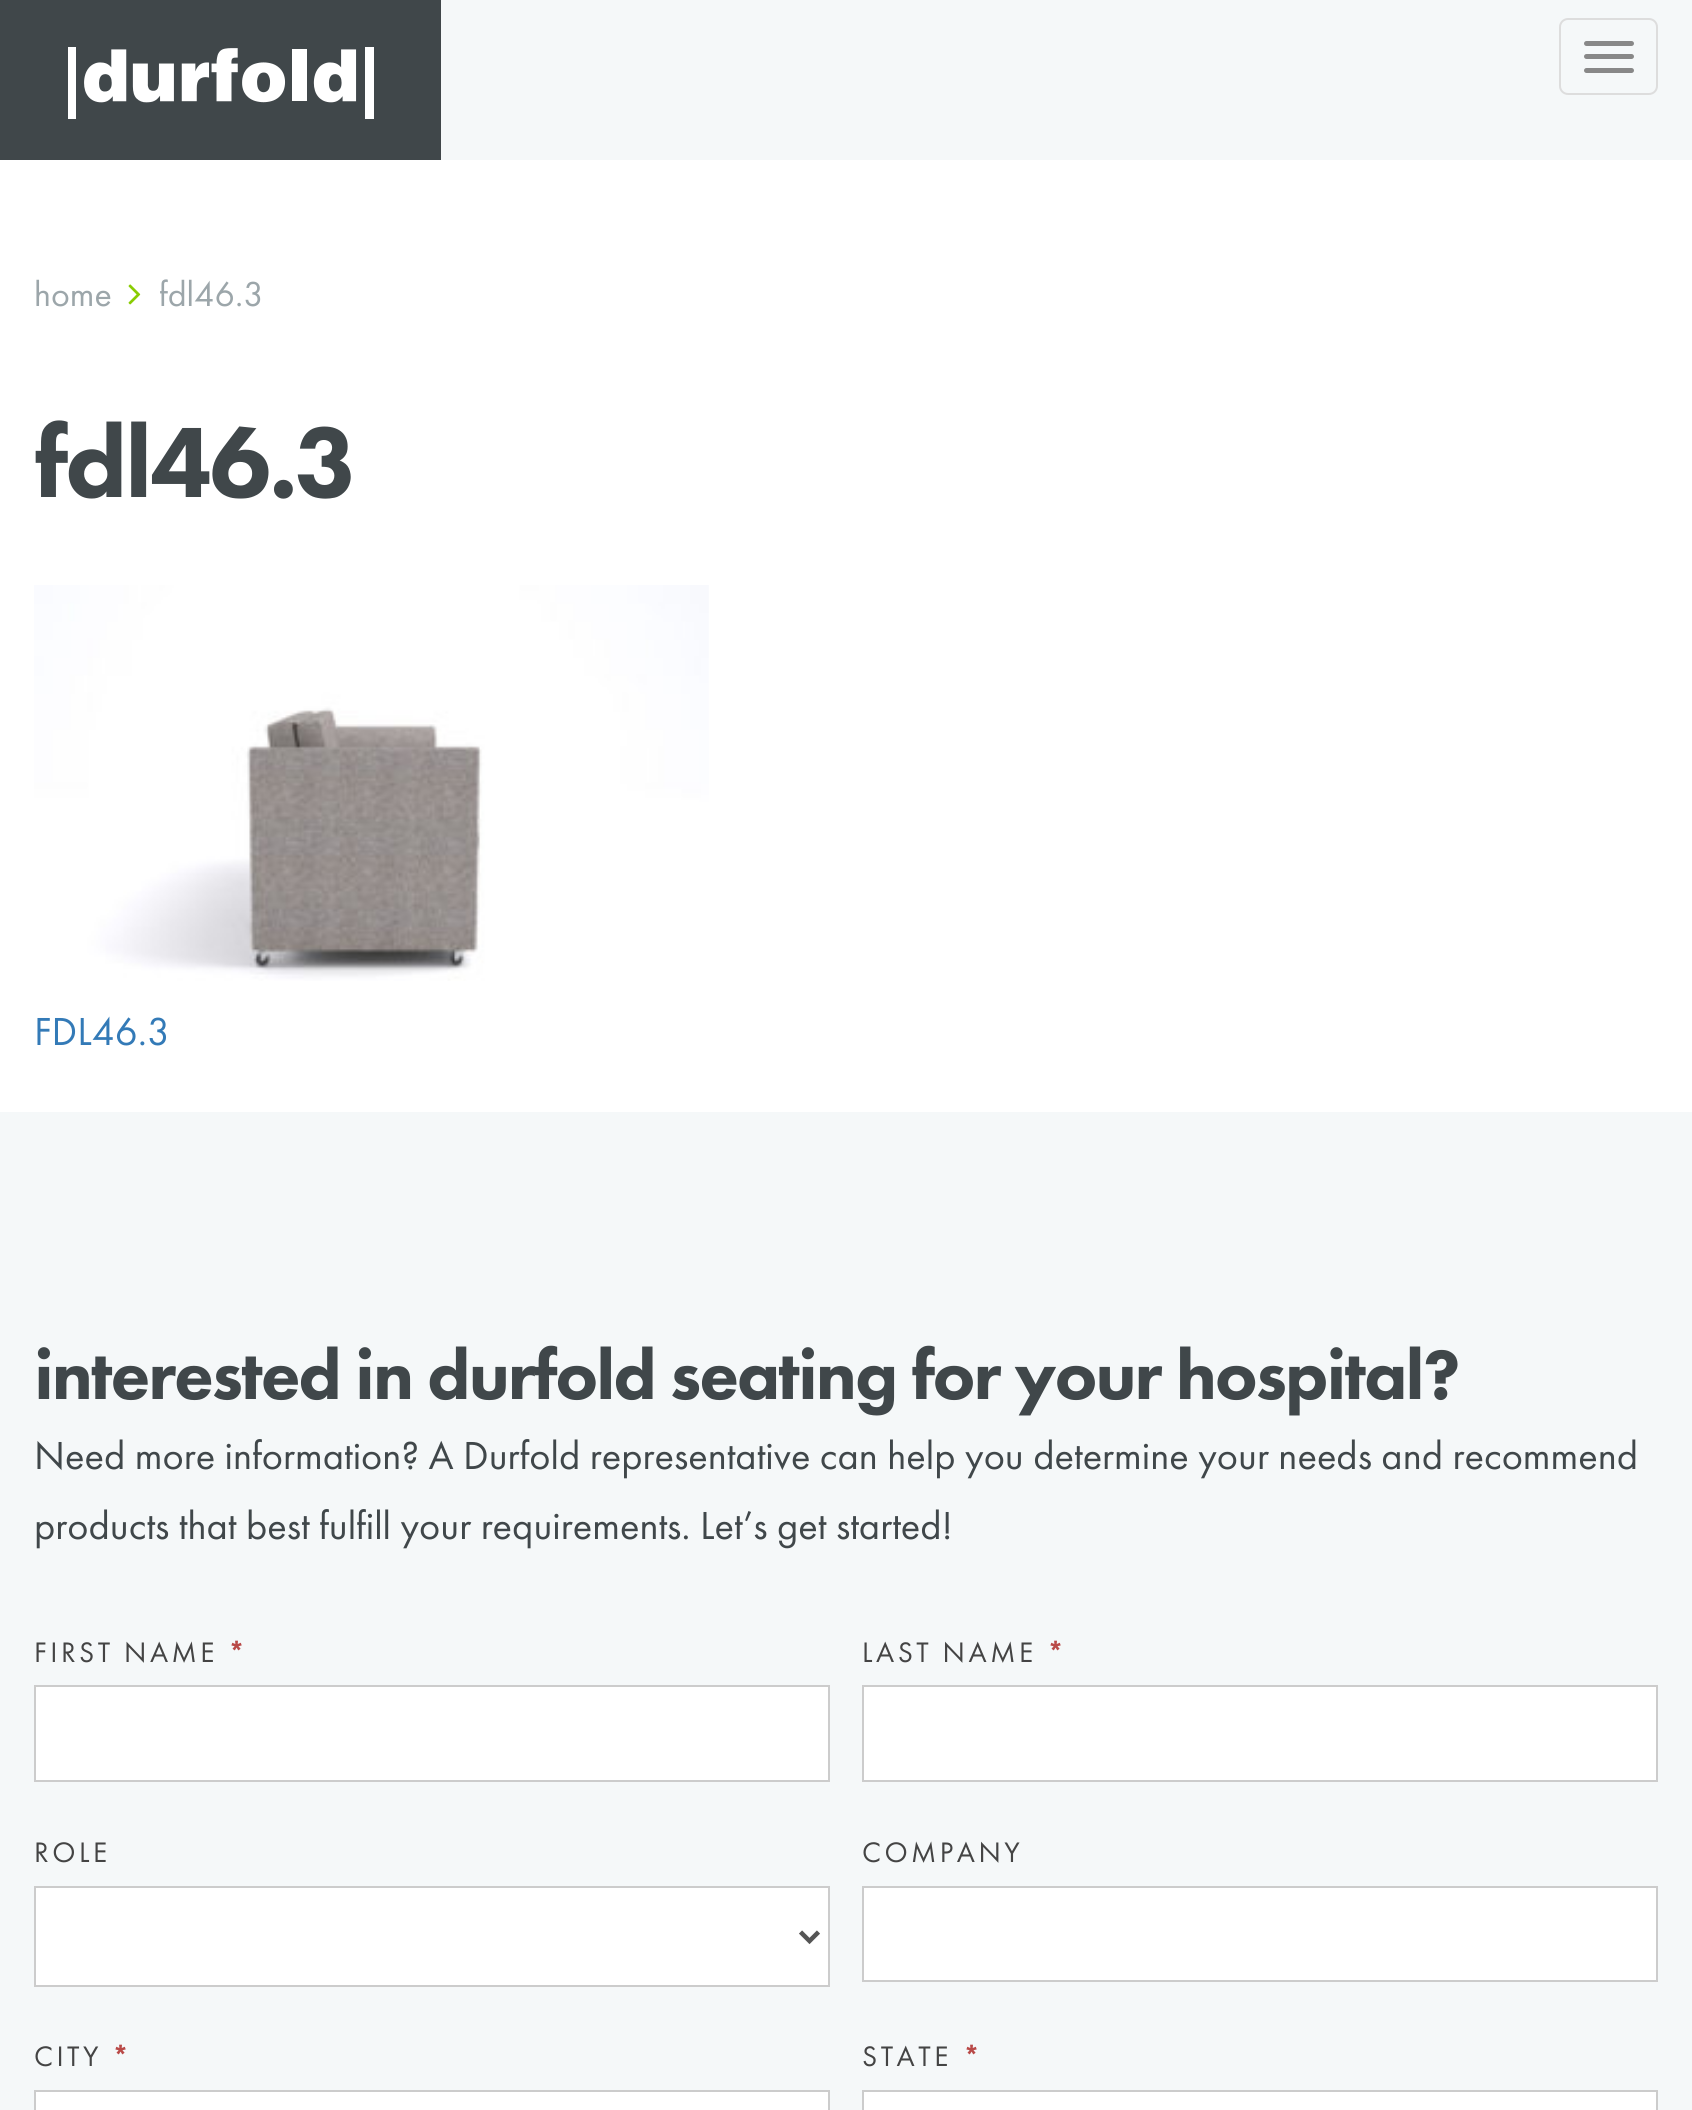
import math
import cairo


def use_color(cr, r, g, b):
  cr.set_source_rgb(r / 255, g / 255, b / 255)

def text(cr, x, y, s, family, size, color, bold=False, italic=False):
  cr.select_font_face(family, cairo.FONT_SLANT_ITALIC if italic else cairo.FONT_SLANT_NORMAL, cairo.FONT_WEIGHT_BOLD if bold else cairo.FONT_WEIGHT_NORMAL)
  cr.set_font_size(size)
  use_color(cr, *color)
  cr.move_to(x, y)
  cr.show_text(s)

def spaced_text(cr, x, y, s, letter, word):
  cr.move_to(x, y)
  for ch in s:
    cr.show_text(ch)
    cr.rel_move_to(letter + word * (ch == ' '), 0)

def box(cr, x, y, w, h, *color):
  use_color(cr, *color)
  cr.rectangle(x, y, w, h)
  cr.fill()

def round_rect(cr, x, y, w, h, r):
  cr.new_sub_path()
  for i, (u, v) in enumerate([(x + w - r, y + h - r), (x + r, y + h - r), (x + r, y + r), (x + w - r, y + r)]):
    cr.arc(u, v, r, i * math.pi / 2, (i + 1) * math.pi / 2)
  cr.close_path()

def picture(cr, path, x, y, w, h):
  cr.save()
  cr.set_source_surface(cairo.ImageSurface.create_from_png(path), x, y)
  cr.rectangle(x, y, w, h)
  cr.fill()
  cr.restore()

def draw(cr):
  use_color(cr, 255, 255, 255)
  cr.paint()
  box(cr, 441, 0, 1251, 160, 245, 248, 249)
  box(cr, 0, 0, 441, 160, 64, 71, 74)
  picture(cr, "img_01.png", 68, 47, 306, 72)
  round_rect(cr, 1560, 19, 97, 75, 8)
  use_color(cr, 221, 221, 221)
  cr.stroke()
  use_color(cr, 136, 136, 136)
  round_rect(cr, 1584, 41, 50, 5, 2.5)
  cr.fill()
  round_rect(cr, 1584, 54, 50, 5, 2.5)
  cr.fill()
  round_rect(cr, 1584, 68, 50, 5, 2.5)
  cr.fill()
  picture(cr, "img_02.png", 128, 284, 13, 21)
  picture(cr, "img_03.png", 34, 585, 675, 396)
  box(cr, 0, 1112, 1692, 998, 245, 248, 249)
  use_color(cr, 255, 255, 255)
  cr.rectangle(35, 1686, 794, 95)
  cr.fill_preserve()
  use_color(cr, 204, 204, 204)
  cr.stroke()
  use_color(cr, 255, 255, 255)
  cr.rectangle(863, 1686, 794, 95)
  cr.fill_preserve()
  use_color(cr, 204, 204, 204)
  cr.stroke()
  use_color(cr, 255, 255, 255)
  cr.rectangle(35, 1887, 794, 99)
  cr.fill_preserve()
  use_color(cr, 204, 204, 204)
  cr.stroke()
  cr.new_path()
  cr.move_to(800.5, 1932)
  cr.line_to(809.5, 1941)
  cr.line_to(818.5, 1932)
  use_color(cr, 85, 85, 85)
  cr.set_line_width(4.5)
  cr.stroke()
  use_color(cr, 255, 255, 255)
  cr.rectangle(863, 1887, 794, 94)
  cr.fill_preserve()
  use_color(cr, 204, 204, 204)
  cr.set_line_width(2)
  cr.stroke()
  use_color(cr, 255, 255, 255)
  cr.rectangle(35, 2091, 794, 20)
  cr.fill_preserve()
  use_color(cr, 204, 204, 204)
  cr.stroke()
  use_color(cr, 255, 255, 255)
  cr.rectangle(863, 2091, 794, 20)
  cr.fill_preserve()
  use_color(cr, 204, 204, 204)
  cr.stroke()
  text(cr, 34, 306, "home", "Futura PT", 36, (156, 166, 170))
  text(cr, 159, 306, "fdl46.3", "Futura PT", 36, (156, 166, 170))
  cr.select_font_face("Futura PT Black")
  cr.set_font_size(103.5)
  use_color(cr, 64, 71, 74)
  spaced_text(cr, 34, 497, "fdl46.3", -2.5, 0)
  text(cr, 34, 1045, "FDL46.3", "Futura PT", 40.5, (51, 122, 183))
  cr.select_font_face("Futura PT Black")
  cr.set_font_size(72)
  use_color(cr, 64, 71, 74)
  spaced_text(cr, 34, 1399, "interested in durfold seating for your hospital?", -1.8, 0)
  text(cr, 34, 1469, "Need more information? A Durfold representative can help you determine your needs and recommend", "Futura PT", 40.5, (64, 71, 74))
  text(cr, 34, 1539, "products that best fulfill your requirements. Let’s get started!", "Futura PT", 40.5, (64, 71, 74))
  cr.set_font_size(29.25)
  use_color(cr, 68, 68, 68)
  spaced_text(cr, 34, 1662, "FIRST NAME", 3.5, 0)
  cr.select_font_face("Futura PT Black")
  use_color(cr, 185, 74, 72)
  spaced_text(cr, 228, 1662, "*", 3.5, 0)
  cr.select_font_face("Futura PT")
  use_color(cr, 68, 68, 68)
  spaced_text(cr, 862, 1662, "LAST NAME", 3.5, 0)
  cr.select_font_face("Futura PT Black")
  use_color(cr, 185, 74, 72)
  spaced_text(cr, 1047, 1662, "*", 3.5, 0)
  cr.select_font_face("Futura PT")
  use_color(cr, 68, 68, 68)
  spaced_text(cr, 34, 1862, "ROLE", 3.5, 0)
  spaced_text(cr, 862, 1862, "COMPANY", 3.5, 0)
  spaced_text(cr, 34, 2066, "CITY", 3.5, 0)
  cr.select_font_face("Futura PT Black")
  use_color(cr, 185, 74, 72)
  spaced_text(cr, 112, 2066, "*", 3.5, 0)
  cr.select_font_face("Futura PT")
  use_color(cr, 68, 68, 68)
  spaced_text(cr, 862, 2066, "STATE", 3.5, 0)
  cr.select_font_face("Futura PT Black")
  use_color(cr, 185, 74, 72)
  spaced_text(cr, 963, 2066, "*", 3.5, 0)


surface = cairo.ImageSurface(cairo.FORMAT_RGB24, 1692, 2110)
cr = cairo.Context(surface)
options = cairo.FontOptions()
options.set_hint_metrics(cairo.HINT_METRICS_OFF)
options.set_hint_style(cairo.HINT_STYLE_NONE)
cr.set_font_options(options)
cr.set_miter_limit(4)
draw(cr)
surface.write_to_png("out.png")
